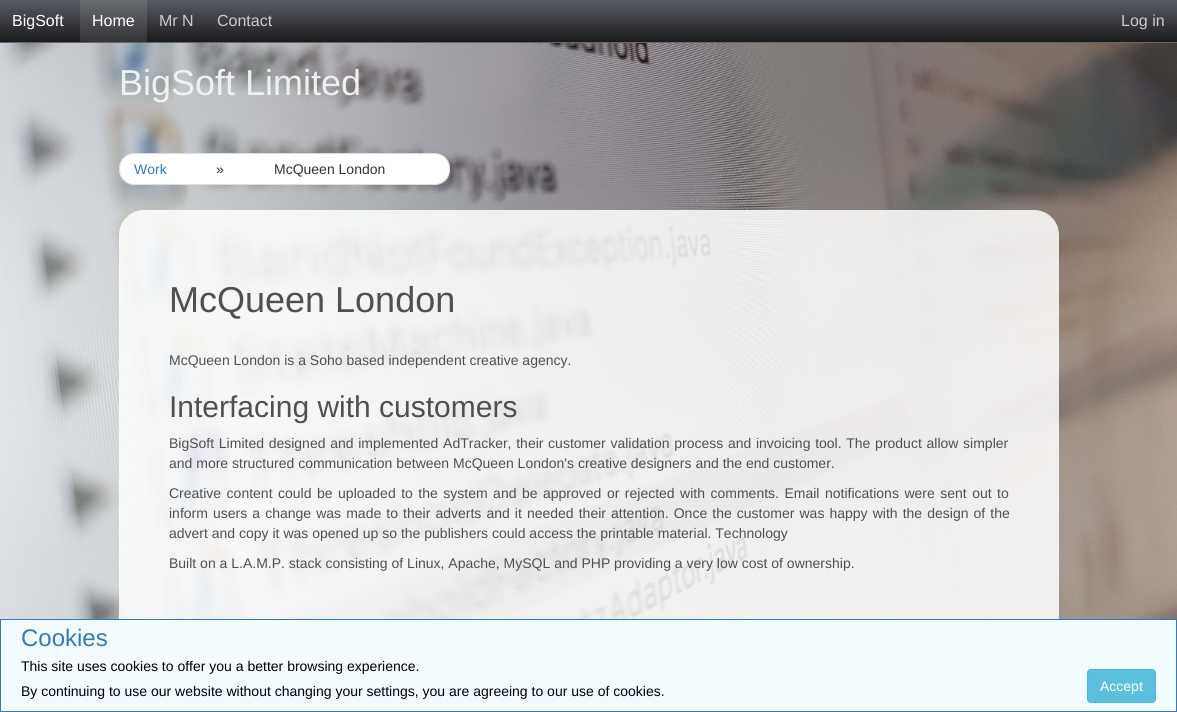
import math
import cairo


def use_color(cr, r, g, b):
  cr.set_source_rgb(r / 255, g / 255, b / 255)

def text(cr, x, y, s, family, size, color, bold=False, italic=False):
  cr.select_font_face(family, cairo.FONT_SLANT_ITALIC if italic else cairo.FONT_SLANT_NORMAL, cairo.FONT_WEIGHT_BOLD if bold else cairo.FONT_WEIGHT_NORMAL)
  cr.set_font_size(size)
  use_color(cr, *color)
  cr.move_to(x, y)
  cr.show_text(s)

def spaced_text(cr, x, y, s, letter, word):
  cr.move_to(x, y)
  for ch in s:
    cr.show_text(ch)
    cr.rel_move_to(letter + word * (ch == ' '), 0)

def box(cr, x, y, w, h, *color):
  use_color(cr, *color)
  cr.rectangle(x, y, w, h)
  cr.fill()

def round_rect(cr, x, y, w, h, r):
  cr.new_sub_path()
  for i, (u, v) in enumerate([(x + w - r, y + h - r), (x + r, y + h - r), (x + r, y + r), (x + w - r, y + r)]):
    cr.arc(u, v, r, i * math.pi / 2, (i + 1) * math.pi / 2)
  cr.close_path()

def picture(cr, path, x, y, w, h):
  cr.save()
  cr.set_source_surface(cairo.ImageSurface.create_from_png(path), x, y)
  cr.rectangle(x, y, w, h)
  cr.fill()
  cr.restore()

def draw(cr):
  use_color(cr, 255, 255, 255)
  cr.paint()
  gradient = cairo.LinearGradient(589, 0, 589, 42)
  gradient.add_color_stop_rgba(0, 0.349, 0.361, 0.392, 1)
  gradient.add_color_stop_rgba(1, 0.106, 0.106, 0.11, 1)
  cr.set_source(gradient)
  cr.rectangle(0, 0, 1177, 42)
  cr.fill()
  box(cr, 0, 42, 1177, 1, 102, 102, 102)
  gradient = cairo.LinearGradient(114, 0, 114, 42)
  gradient.add_color_stop_rgba(0, 0.412, 0.424, 0.447, 1)
  gradient.add_color_stop_rgba(1, 0.2, 0.2, 0.204, 1)
  cr.set_source(gradient)
  cr.rectangle(80, 0, 67, 42)
  cr.fill()
  picture(cr, "img_01.png", 0, 43, 1177, 576)
  use_color(cr, 255, 255, 255)
  round_rect(cr, 119.5, 153.5, 330, 31, 14.5)
  cr.fill_preserve()
  use_color(cr, 221, 221, 221)
  cr.set_line_width(1)
  cr.stroke()
  cr.set_source_rgba(1, 1, 1, 0.85)
  round_rect(cr, 119, 210, 940, 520, 25)
  cr.fill()
  use_color(cr, 242, 251, 255)
  cr.rectangle(0.5, 619.5, 1176, 92)
  cr.fill_preserve()
  use_color(cr, 51, 122, 183)
  cr.stroke()
  use_color(cr, 91, 192, 222)
  round_rect(cr, 1087.5, 669.5, 68, 33, 3.5)
  cr.fill_preserve()
  use_color(cr, 70, 184, 218)
  cr.stroke()
  text(cr, 12, 26, "BigSoft", "Liberation Sans", 16, (255, 255, 255))
  text(cr, 92, 26, "Home", "Liberation Sans", 16, (255, 255, 255))
  text(cr, 159, 26, "Mr N", "Liberation Sans", 16, (204, 204, 204))
  text(cr, 217, 26, "Contact", "Liberation Sans", 16, (204, 204, 204))
  text(cr, 1121, 26, "Log in", "Liberation Sans", 16, (204, 204, 204))
  text(cr, 119, 95, "BigSoft Limited", "Liberation Sans", 36, (240, 240, 240))
  text(cr, 134, 174, "Work", "Liberation Sans", 14, (51, 122, 183))
  text(cr, 216, 174, "»", "Liberation Sans", 14, (51, 51, 51))
  text(cr, 274, 174, "McQueen London", "Liberation Sans", 14, (51, 51, 51))
  text(cr, 169, 312, "McQueen London", "Liberation Sans", 36, (80, 80, 80))
  text(cr, 169, 365, "McQueen London is a Soho based independent creative agency.", "Liberation Sans", 14, (80, 80, 80))
  text(cr, 169, 417, "Interfacing with customers", "Liberation Sans", 30, (80, 80, 80))
  cr.set_font_size(14)
  spaced_text(cr, 169, 448, "BigSoft Limited designed and implemented AdTracker, their customer validation process and invoicing tool. The product allow simpler", 0, 0.8)
  text(cr, 169, 468, "and more structured communication between McQueen London's creative designers and the end customer.", "Liberation Sans", 14, (80, 80, 80))
  spaced_text(cr, 169, 498, "Creative content could be uploaded to the system and be approved or rejected with comments. Email notifications were sent out to", 0, 1.6)
  spaced_text(cr, 169, 518, "inform users a change was made to their adverts and it needed their attention. Once the customer was happy with the design of the", 0, 1.2)
  text(cr, 169, 538, "advert and copy it was opened up so the publishers could access the printable material. Technology", "Liberation Sans", 14, (80, 80, 80))
  text(cr, 169, 568, "Built on a L.A.M.P. stack consisting of Linux, Apache, MySQL and PHP providing a very low cost of ownership.", "Liberation Sans", 14, (80, 80, 80))
  text(cr, 21, 646, "Cookies", "Liberation Sans", 24, (51, 122, 183))
  text(cr, 21, 671, "This site uses cookies to offer you a better browsing experience.", "Liberation Sans", 14, (0, 0, 0))
  text(cr, 21, 696, "By continuing to use our website without changing your settings, you are agreeing to our use of cookies.", "Liberation Sans", 14, (0, 0, 0))
  text(cr, 1100, 691, "Accept", "Liberation Sans", 14, (255, 255, 255))


surface = cairo.ImageSurface(cairo.FORMAT_RGB24, 1177, 712)
cr = cairo.Context(surface)
options = cairo.FontOptions()
options.set_hint_metrics(cairo.HINT_METRICS_OFF)
options.set_hint_style(cairo.HINT_STYLE_NONE)
cr.set_font_options(options)
cr.set_miter_limit(4)
draw(cr)
surface.write_to_png("out.png")
